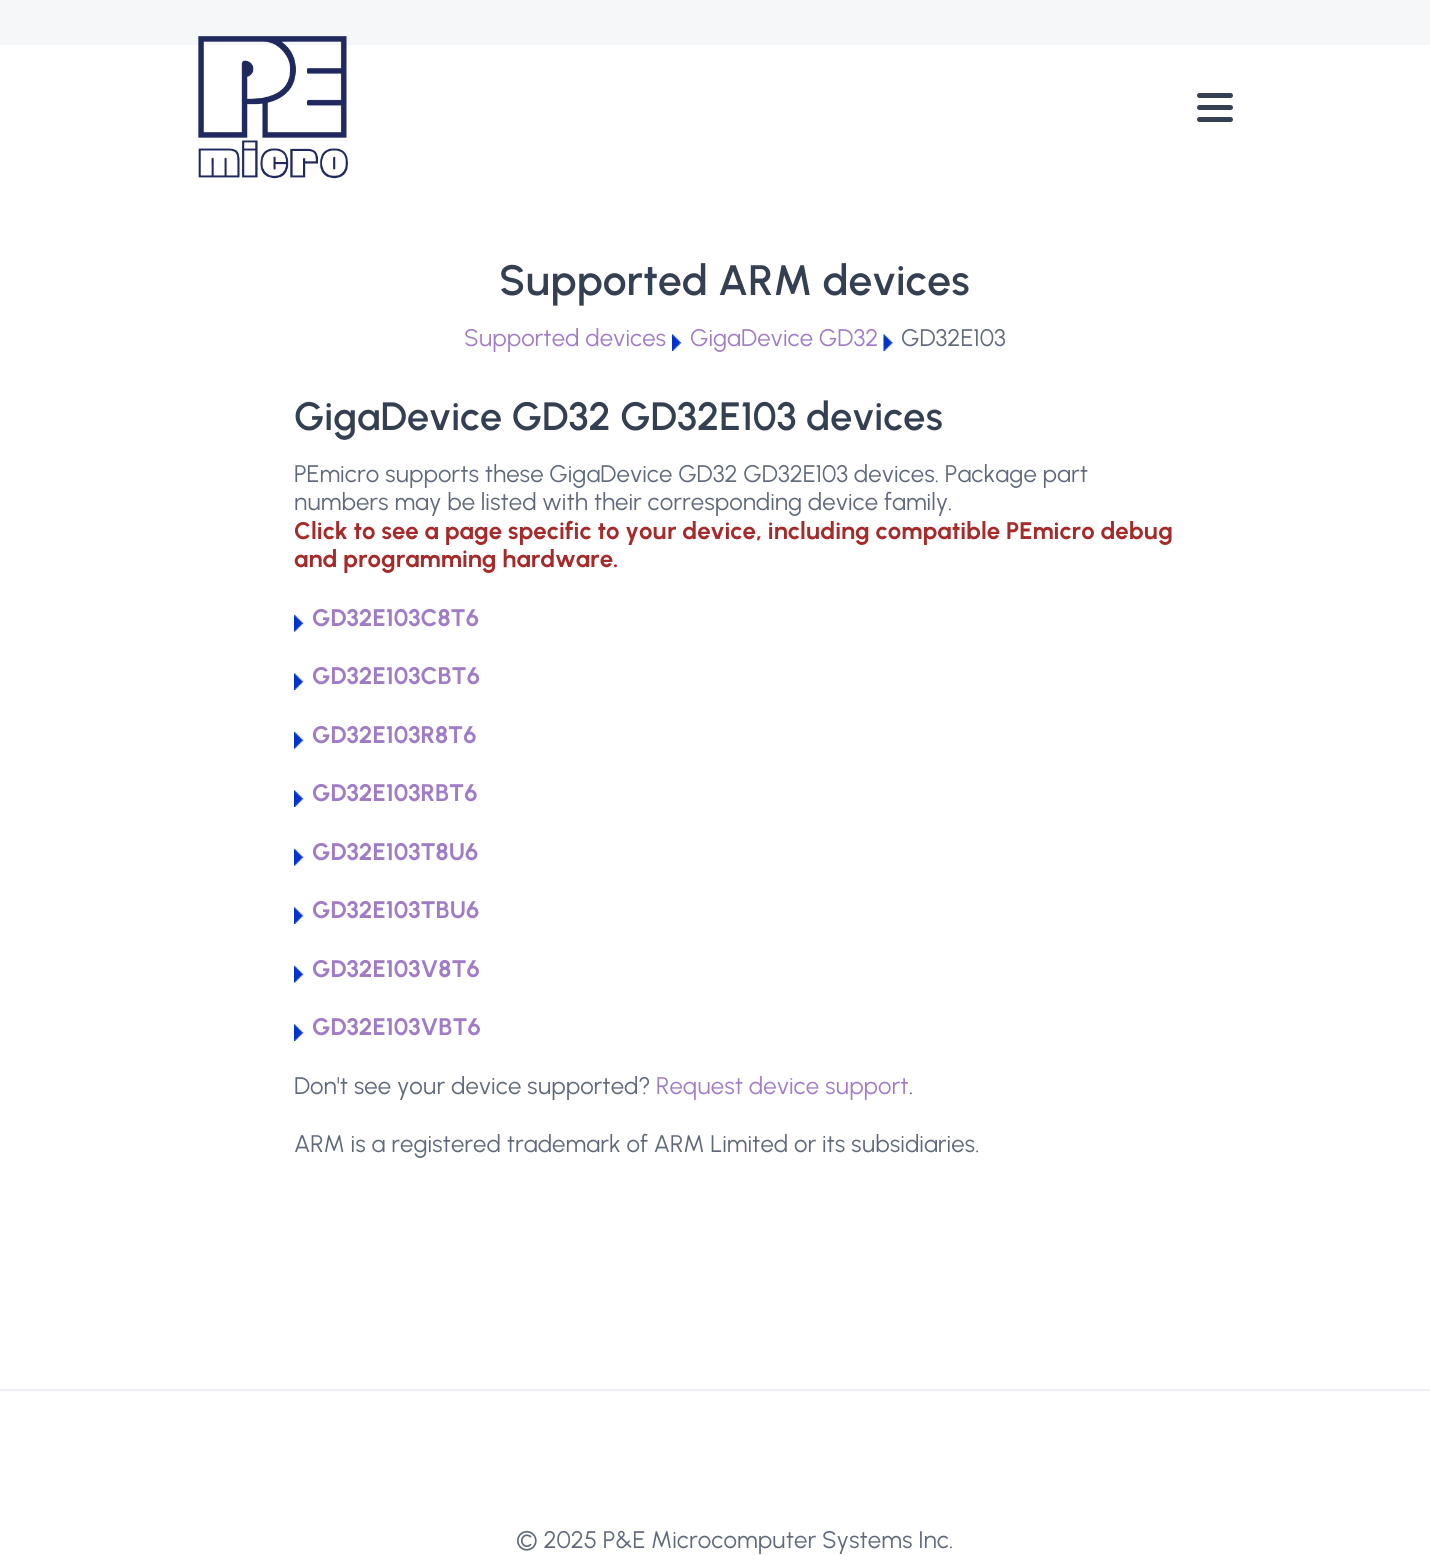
import math
import cairo


def use_color(cr, r, g, b):
  cr.set_source_rgb(r / 255, g / 255, b / 255)

def text(cr, x, y, s, family, size, color, bold=False, italic=False):
  cr.select_font_face(family, cairo.FONT_SLANT_ITALIC if italic else cairo.FONT_SLANT_NORMAL, cairo.FONT_WEIGHT_BOLD if bold else cairo.FONT_WEIGHT_NORMAL)
  cr.set_font_size(size)
  use_color(cr, *color)
  cr.move_to(x, y)
  cr.show_text(s)

def box(cr, x, y, w, h, *color):
  use_color(cr, *color)
  cr.rectangle(x, y, w, h)
  cr.fill()

def round_rect(cr, x, y, w, h, r):
  cr.new_sub_path()
  for i, (u, v) in enumerate([(x + w - r, y + h - r), (x + r, y + h - r), (x + r, y + r), (x + w - r, y + r)]):
    cr.arc(u, v, r, i * math.pi / 2, (i + 1) * math.pi / 2)
  cr.close_path()

def picture(cr, path, x, y, w, h):
  cr.save()
  cr.set_source_surface(cairo.ImageSurface.create_from_png(path), x, y)
  cr.rectangle(x, y, w, h)
  cr.fill()
  cr.restore()

def draw(cr):
  use_color(cr, 255, 255, 255)
  cr.paint()
  box(cr, 0, 0, 1430, 45, 246, 247, 249)
  picture(cr, "img_01.png", 198, 36, 150, 143)
  use_color(cr, 52, 63, 82)
  round_rect(cr, 1197, 93, 36, 5, 2.5)
  cr.fill()
  round_rect(cr, 1197, 105, 36, 5, 2.5)
  cr.fill()
  round_rect(cr, 1197, 117, 36, 5, 2.5)
  cr.fill()
  picture(cr, "img_02.png", 672, 334, 10, 17)
  picture(cr, "img_03.png", 883, 334, 10, 17)
  picture(cr, "img_04.png", 294, 614, 10, 18)
  picture(cr, "img_05.png", 294, 673, 10, 17)
  picture(cr, "img_04.png", 294, 731, 10, 18)
  picture(cr, "img_05.png", 294, 790, 10, 17)
  picture(cr, "img_04.png", 294, 848, 10, 18)
  picture(cr, "img_05.png", 294, 907, 10, 17)
  picture(cr, "img_04.png", 294, 965, 10, 18)
  picture(cr, "img_05.png", 294, 1024, 10, 17)
  box(cr, 0, 1389, 1430, 2, 237, 239, 244)
  text(cr, 499, 295, "Supported ARM devices", "Urbanist SemiBold", 42.5, (52, 63, 82))
  text(cr, 464, 346, "Supported devices", "Urbanist", 24, (160, 124, 197))
  text(cr, 690, 346, "GigaDevice GD32", "Urbanist", 24, (160, 124, 197))
  text(cr, 901, 346, "GD32E103", "Urbanist", 24, (96, 105, 123))
  text(cr, 294, 430, "GigaDevice GD32 GD32E103", "Urbanist SemiBold", 39.5, (52, 63, 82))
  text(cr, 806, 430, "devices", "Urbanist SemiBold", 39.5, (52, 63, 82))
  text(cr, 294, 482, "PEmicro supports these GigaDevice GD32 GD32E103 devices. Package part", "Urbanist", 24, (96, 105, 123))
  text(cr, 294, 510, "numbers may be listed with their corresponding device family.", "Urbanist", 24, (96, 105, 123))
  text(cr, 294, 539, "Click to see a page specific to your device, including compatible PEmicro debug", "Urbanist", 24, (165, 42, 42), bold=True)
  text(cr, 294, 567, "and programming hardware.", "Urbanist", 24, (165, 42, 42), bold=True)
  text(cr, 312, 626, "GD32E103C8T6", "Urbanist", 24, (160, 124, 197), bold=True)
  text(cr, 312, 684, "GD32E103CBT6", "Urbanist", 24, (160, 124, 197), bold=True)
  text(cr, 312, 743, "GD32E103R8T6", "Urbanist", 24, (160, 124, 197), bold=True)
  text(cr, 312, 801, "GD32E103RBT6", "Urbanist", 24, (160, 124, 197), bold=True)
  text(cr, 312, 860, "GD32E103T8U6", "Urbanist", 24, (160, 124, 197), bold=True)
  text(cr, 312, 918, "GD32E103TBU6", "Urbanist", 24, (160, 124, 197), bold=True)
  text(cr, 312, 977, "GD32E103V8T6", "Urbanist", 24, (160, 124, 197), bold=True)
  text(cr, 312, 1035, "GD32E103VBT6", "Urbanist", 24, (160, 124, 197), bold=True)
  text(cr, 294, 1094, "Don't see your device supported?", "Urbanist", 24, (96, 105, 123))
  text(cr, 656, 1094, "Request device support", "Urbanist", 24, (160, 124, 197))
  text(cr, 909, 1094, ".", "Urbanist", 24, (96, 105, 123))
  text(cr, 294, 1152, "ARM is a registered trademark of ARM Limited or its subsidiaries.", "Urbanist", 24, (96, 105, 123))
  text(cr, 516, 1548, "© 2025 P&E Microcomputer Systems Inc.", "Urbanist", 24, (96, 105, 123))


surface = cairo.ImageSurface(cairo.FORMAT_RGB24, 1430, 1555)
cr = cairo.Context(surface)
options = cairo.FontOptions()
options.set_hint_metrics(cairo.HINT_METRICS_OFF)
options.set_hint_style(cairo.HINT_STYLE_NONE)
cr.set_font_options(options)
cr.set_miter_limit(4)
draw(cr)
surface.write_to_png("out.png")
